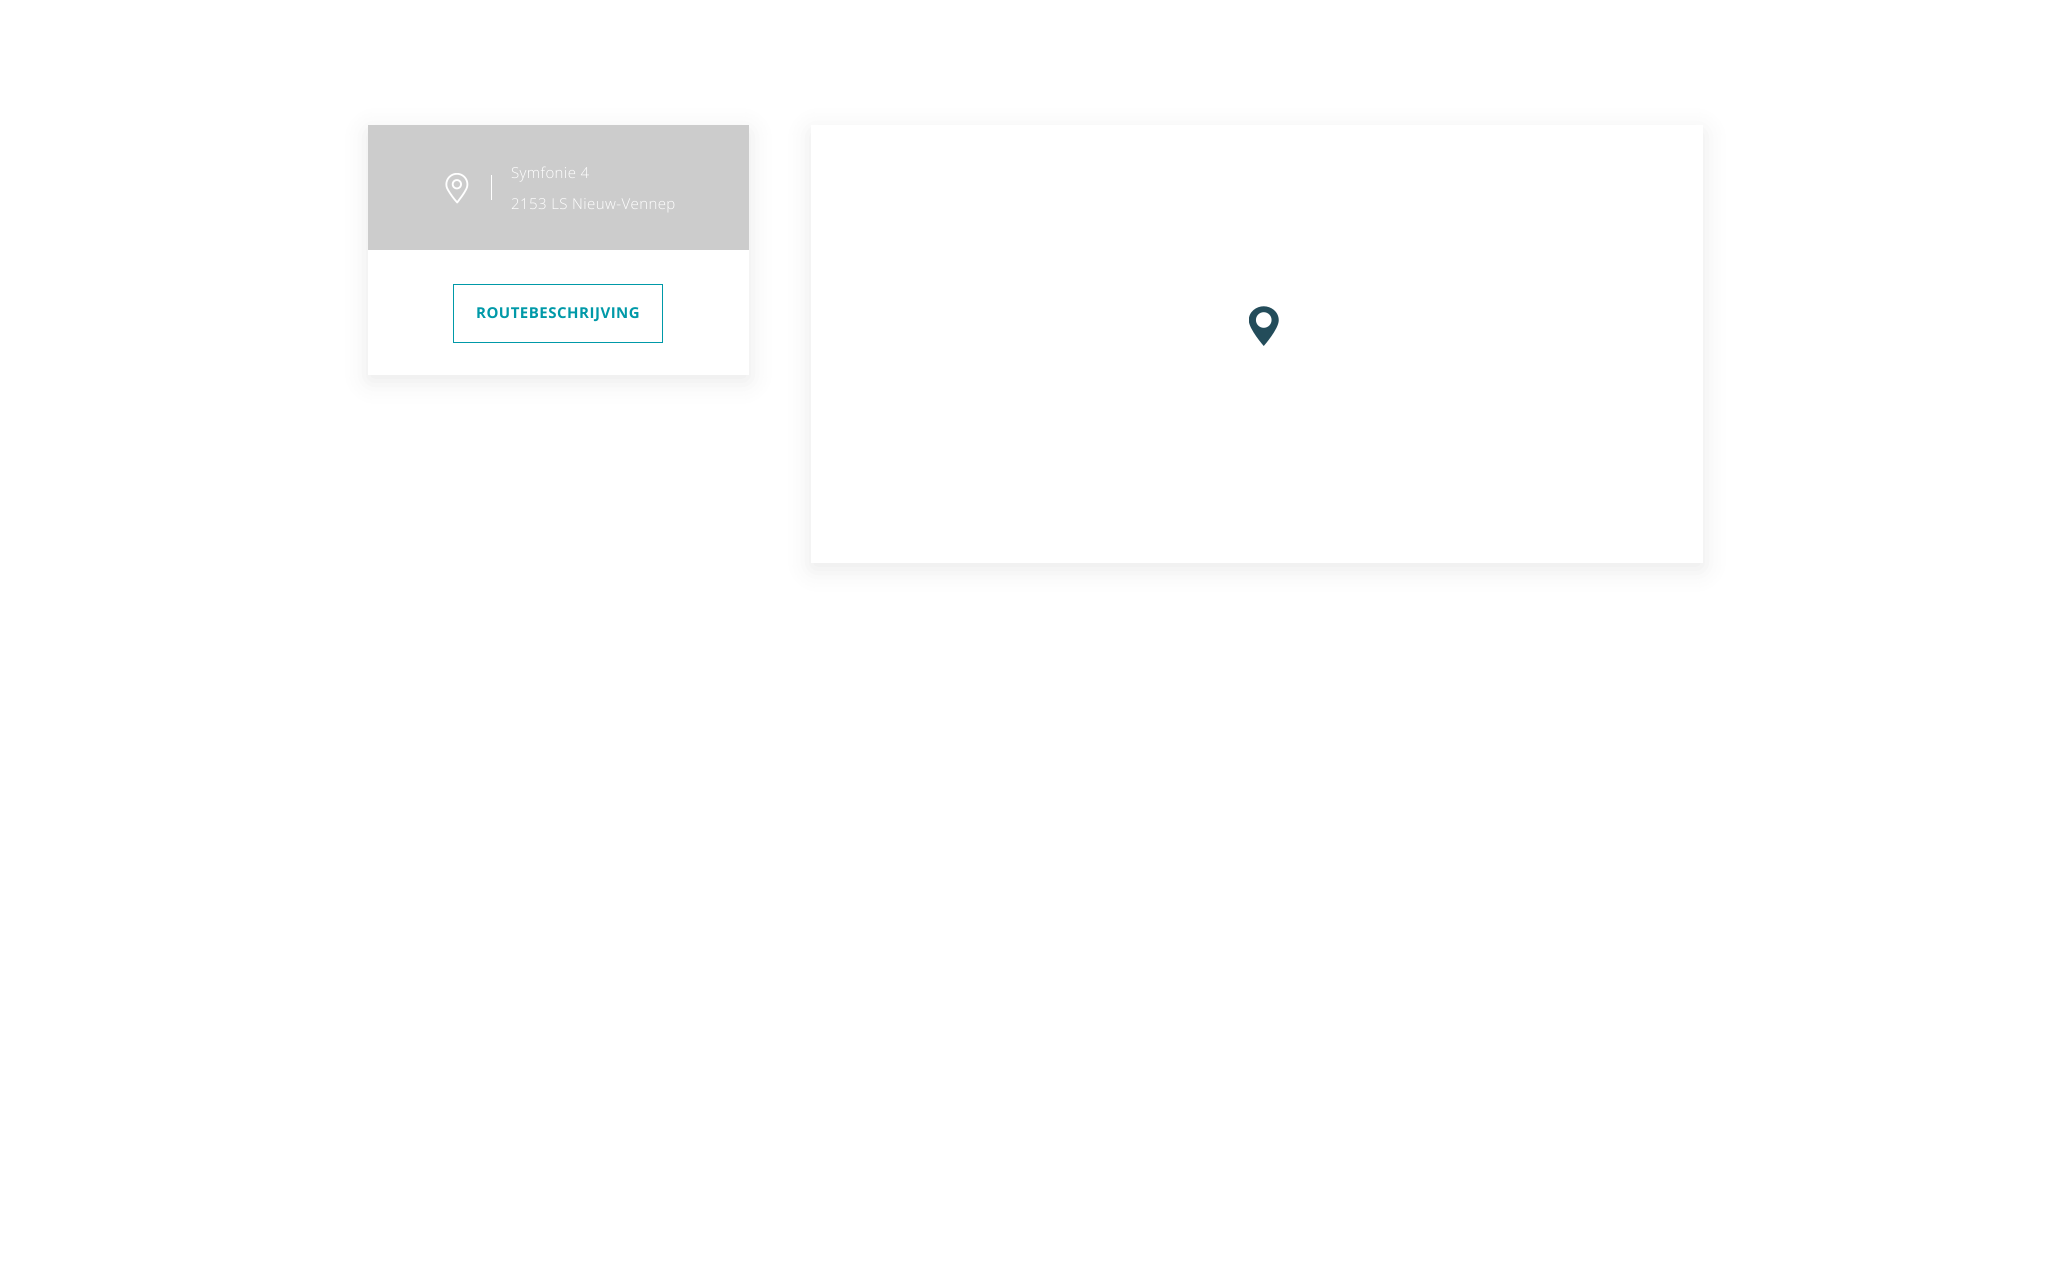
import math
import cairo


def use_color(cr, r, g, b):
  cr.set_source_rgb(r / 255, g / 255, b / 255)

def spaced_text(cr, x, y, s, letter, word):
  cr.move_to(x, y)
  for ch in s:
    cr.show_text(ch)
    cr.rel_move_to(letter + word * (ch == ' '), 0)

def box(cr, x, y, w, h, *color):
  use_color(cr, *color)
  cr.rectangle(x, y, w, h)
  cr.fill()

def round_rect(cr, x, y, w, h, r):
  cr.new_sub_path()
  for i, (u, v) in enumerate([(x + w - r, y + h - r), (x + r, y + h - r), (x + r, y + r), (x + w - r, y + r)]):
    cr.arc(u, v, r, i * math.pi / 2, (i + 1) * math.pi / 2)
  cr.close_path()

def shadow(cr, x, y, w, h, r, blur, alpha):
  cr.push_group_with_content(cairo.CONTENT_ALPHA)
  cr.set_operator(cairo.OPERATOR_SOURCE)
  for i in range(15, -16, -2):
    e = blur * i / 6
    if min(w, h) + 2 * e > 0:
      cr.set_source_rgba(0, 0, 0, alpha * math.erfc((i - 1) / 8.5) / 2)
      round_rect(cr, x - e, y - e, w + 2 * e, h + 2 * e, max(0, min(r + e + blur * .6, min(w, h) / 2 + e)))
      cr.fill()
  cr.mask(cr.pop_group())

def picture(cr, path, x, y, w, h):
  cr.save()
  cr.set_source_surface(cairo.ImageSurface.create_from_png(path), x, y)
  cr.rectangle(x, y, w, h)
  cr.fill()
  cr.restore()

def draw(cr):
  use_color(cr, 255, 255, 255)
  cr.paint()
  use_color(cr, 0, 0, 0)
  shadow(cr, 368, 131, 381, 250, 0, 12.5, 0.09)
  box(cr, 368, 250, 381, 125, 255, 255, 255)
  box(cr, 368, 125, 381, 125, 204, 204, 204)
  picture(cr, "img_01.png", 445, 173, 24, 31)
  box(cr, 491, 175, 1, 25, 255, 255, 255)
  cr.rectangle(453.5, 284.5, 209, 58)
  use_color(cr, 0, 153, 168)
  cr.set_line_width(1)
  cr.stroke()
  use_color(cr, 0, 0, 0)
  shadow(cr, 811, 131, 892, 438, 0, 12.5, 0.09)
  box(cr, 811, 125, 892, 438, 255, 255, 255)
  picture(cr, "img_02.png", 1249, 306, 30, 40)
  cr.select_font_face("Open Sans Light")
  cr.set_font_size(15)
  spaced_text(cr, 511, 178, "Symfonie 4", 0.4, 0)
  spaced_text(cr, 511, 209, "2153 LS Nieuw-Vennep", 0.4, 0)
  cr.select_font_face("Open Sans", cairo.FONT_SLANT_NORMAL, cairo.FONT_WEIGHT_BOLD)
  use_color(cr, 0, 153, 168)
  spaced_text(cr, 476, 318, "ROUTEBESCHRIJVING", 0.5, 0)


surface = cairo.ImageSurface(cairo.FORMAT_RGB24, 2068, 1286)
cr = cairo.Context(surface)
options = cairo.FontOptions()
options.set_hint_metrics(cairo.HINT_METRICS_OFF)
options.set_hint_style(cairo.HINT_STYLE_NONE)
cr.set_font_options(options)
cr.set_miter_limit(4)
draw(cr)
surface.write_to_png("out.png")
